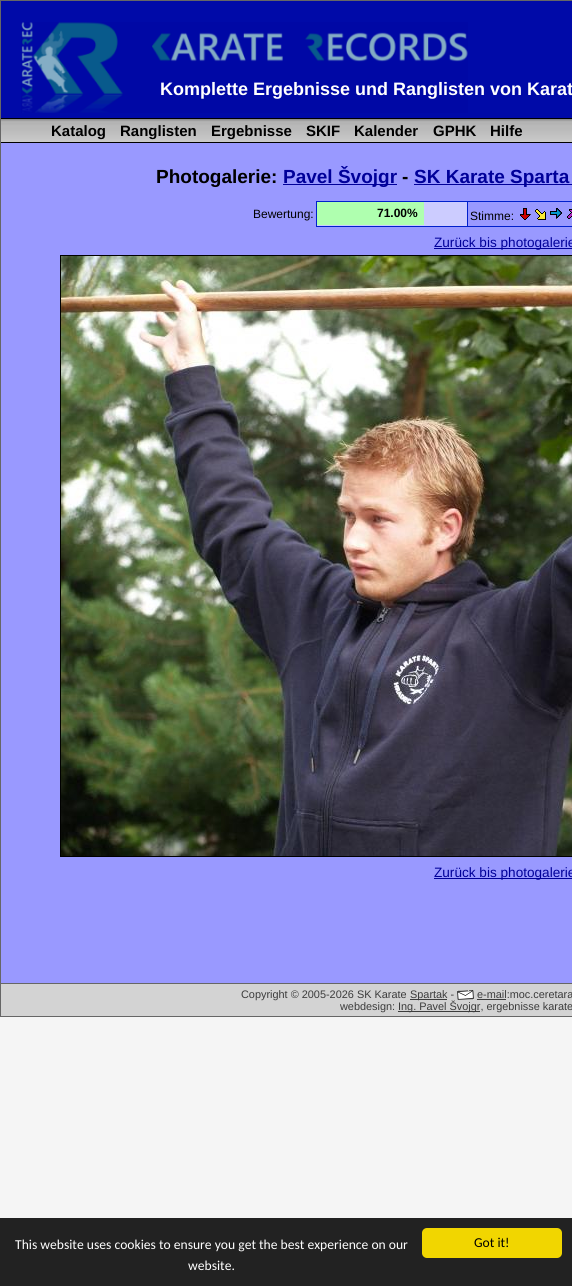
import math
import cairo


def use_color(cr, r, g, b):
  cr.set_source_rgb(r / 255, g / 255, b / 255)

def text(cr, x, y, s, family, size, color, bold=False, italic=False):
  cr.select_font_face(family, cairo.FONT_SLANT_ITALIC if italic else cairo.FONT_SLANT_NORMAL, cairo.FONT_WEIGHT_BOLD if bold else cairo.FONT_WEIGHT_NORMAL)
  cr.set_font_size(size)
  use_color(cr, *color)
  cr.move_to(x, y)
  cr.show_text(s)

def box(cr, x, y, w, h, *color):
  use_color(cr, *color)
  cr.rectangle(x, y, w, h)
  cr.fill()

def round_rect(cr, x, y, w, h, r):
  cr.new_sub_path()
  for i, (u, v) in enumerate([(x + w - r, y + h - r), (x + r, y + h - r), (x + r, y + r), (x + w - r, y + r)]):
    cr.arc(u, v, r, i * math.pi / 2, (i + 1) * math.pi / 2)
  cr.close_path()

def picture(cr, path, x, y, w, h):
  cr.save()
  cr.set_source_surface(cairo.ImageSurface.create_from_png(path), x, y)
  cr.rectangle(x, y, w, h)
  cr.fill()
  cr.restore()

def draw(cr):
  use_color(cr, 245, 245, 245)
  cr.paint()
  cr.rectangle(0.5, 0.5, 571, 1016)
  use_color(cr, 102, 102, 102)
  cr.set_line_width(1)
  cr.stroke()
  box(cr, 1, 1, 571, 117, 0, 10, 168)
  picture(cr, "img_01.png", 21, 22, 447, 91)
  picture(cr, "img_02.png", 1, 119, 571, 23)
  box(cr, 1, 118, 571, 1, 0, 0, 0)
  box(cr, 1, 142, 571, 1, 0, 0, 0)
  box(cr, 1, 143, 571, 840, 153, 153, 255)
  box(cr, 283, 184, 114, 1, 0, 0, 153)
  box(cr, 414, 184, 158, 1, 0, 0, 153)
  box(cr, 317, 202, 150, 24, 204, 204, 255)
  box(cr, 467, 201, 105, 1, 0, 32, 204)
  box(cr, 467, 226, 105, 1, 0, 32, 204)
  box(cr, 467, 201, 1, 26, 0, 32, 204)
  box(cr, 316, 201, 152, 1, 0, 32, 204)
  box(cr, 316, 226, 152, 1, 0, 32, 204)
  box(cr, 316, 201, 1, 26, 0, 32, 204)
  box(cr, 317, 202, 107, 23, 175, 255, 175)
  picture(cr, "img_03.png", 520, 208, 11, 12)
  picture(cr, "img_04.png", 535, 209, 11, 11)
  picture(cr, "img_05.png", 550, 208, 12, 11)
  picture(cr, "img_06.png", 567, 209, 5, 10)
  box(cr, 434, 248, 138, 1, 0, 0, 153)
  cr.rectangle(60.5, 255.5, 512, 601)
  use_color(cr, 0, 0, 0)
  cr.stroke()
  picture(cr, "img_07.png", 61, 256, 511, 600)
  box(cr, 434, 878, 138, 1, 0, 0, 153)
  box(cr, 1, 984, 571, 32, 211, 211, 211)
  box(cr, 1, 983, 571, 1, 102, 102, 102)
  box(cr, 410, 999, 37, 1, 60, 60, 60)
  picture(cr, "img_08.png", 457, 990, 17, 10)
  box(cr, 477, 999, 29, 1, 60, 60, 60)
  box(cr, 398, 1011, 82, 1, 60, 60, 60)
  box(cr, 0, 1218, 572, 68, 34, 34, 34)
  use_color(cr, 241, 214, 0)
  round_rect(cr, 422, 1228, 140, 30, 5)
  cr.fill()
  text(cr, 160, 95, "Komplette Ergebnisse und Ranglisten von Karat", "Liberation Sans", 18, (255, 255, 255), bold=True)
  text(cr, 51, 136, "Katalog", "Liberation Sans", 15, (0, 0, 0), bold=True)
  text(cr, 120, 136, "Ranglisten", "Liberation Sans", 15, (0, 0, 0), bold=True)
  text(cr, 211, 136, "Ergebnisse", "Liberation Sans", 15, (0, 0, 0), bold=True)
  text(cr, 306, 136, "SKIF", "Liberation Sans", 15, (0, 0, 0), bold=True)
  text(cr, 354, 136, "Kalender", "Liberation Sans", 15, (0, 0, 0), bold=True)
  text(cr, 433, 136, "GPHK", "Liberation Sans", 15, (0, 0, 0), bold=True)
  text(cr, 490, 136, "Hilfe", "Liberation Sans", 15, (0, 0, 0), bold=True)
  text(cr, 156, 183, "Photogalerie:", "Liberation Sans", 19, (0, 0, 0), bold=True)
  text(cr, 283, 183, "Pavel Švojgr", "Liberation Sans", 19, (0, 0, 153), bold=True)
  text(cr, 402, 183, "-", "Liberation Sans", 19, (0, 0, 0), bold=True)
  text(cr, 414, 183, "SK Karate Sparta", "Liberation Sans", 19, (0, 0, 153), bold=True)
  text(cr, 253, 218, "Bewertung:", "Liberation Sans", 12, (0, 0, 0))
  text(cr, 377, 217, "71.00%", "Liberation Sans", 12, (0, 0, 0), bold=True)
  text(cr, 470, 220, "Stimme:", "Liberation Sans", 12, (0, 0, 0))
  text(cr, 434, 247, "Zurück bis photogalerie", "Liberation Sans", 13.6, (0, 0, 153))
  text(cr, 434, 877, "Zurück bis photogalerie", "Liberation Sans", 13.6, (0, 0, 153))
  text(cr, 241, 998, "Copyright © 2005-2026 SK Karate", "Liberation Sans", 10.9, (60, 60, 60))
  text(cr, 410, 998, "Spartak -", "Liberation Sans", 10.9, (60, 60, 60))
  text(cr, 477, 998, "e-mail:moc.ceretara", "Liberation Sans", 10.9, (60, 60, 60))
  text(cr, 340, 1010, "webdesign:", "Liberation Sans", 10.9, (60, 60, 60))
  text(cr, 398, 1010, "Ing. Pavel Švojgr, ergebnisse karate", "Liberation Sans", 10.9, (60, 60, 60))
  text(cr, 15, 1249, "This website uses cookies to ensure you get the best experience on our", "Carlito", 13.6, (255, 255, 255))
  text(cr, 188, 1270, "website.", "Carlito", 13.6, (255, 255, 255))
  text(cr, 474, 1247, "Got it!", "Carlito", 13.6, (0, 0, 0))


surface = cairo.ImageSurface(cairo.FORMAT_RGB24, 572, 1286)
cr = cairo.Context(surface)
options = cairo.FontOptions()
options.set_hint_metrics(cairo.HINT_METRICS_OFF)
options.set_hint_style(cairo.HINT_STYLE_NONE)
cr.set_font_options(options)
cr.set_miter_limit(4)
draw(cr)
surface.write_to_png("out.png")
